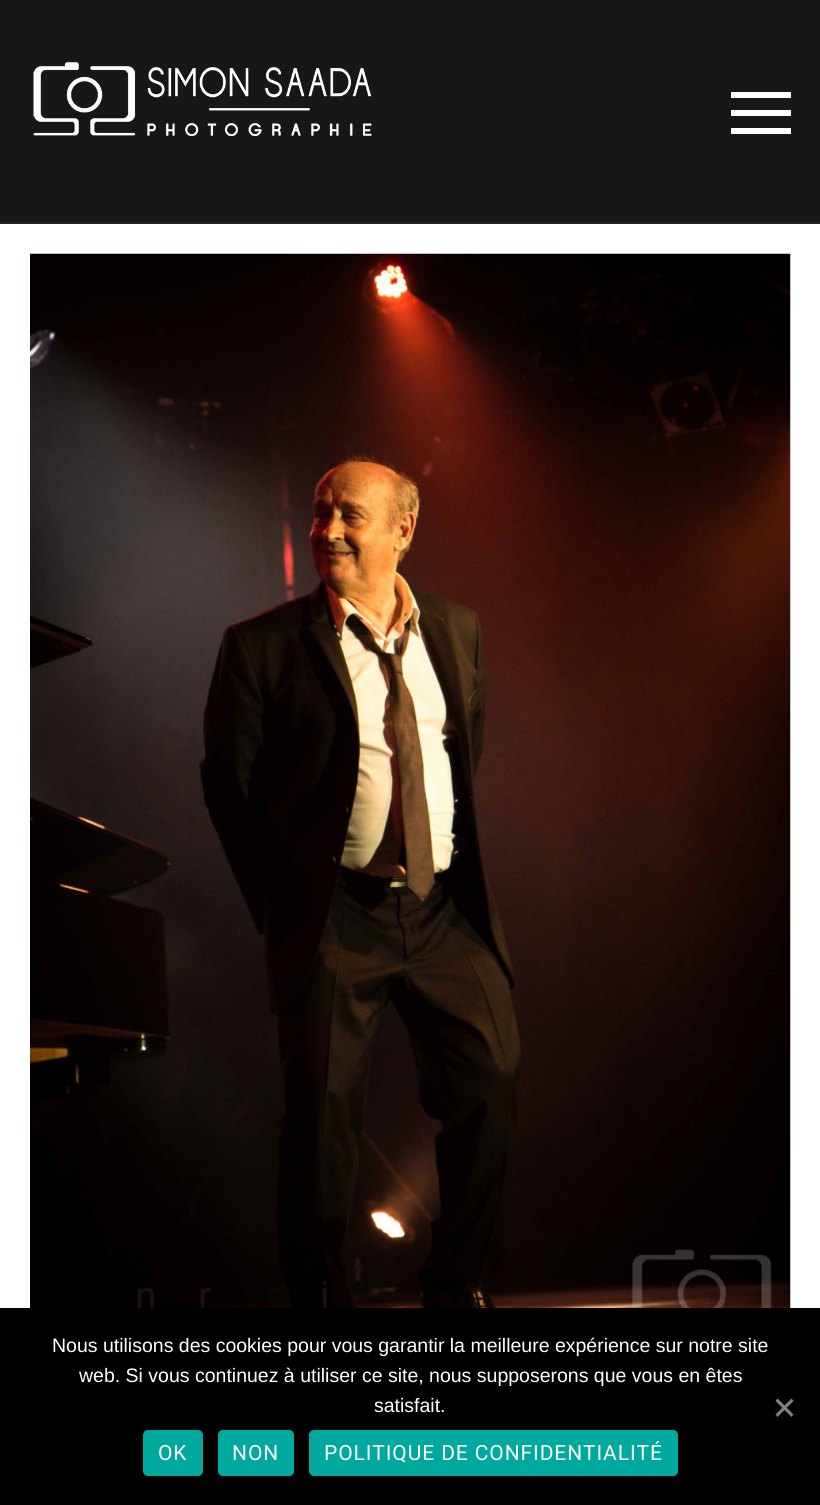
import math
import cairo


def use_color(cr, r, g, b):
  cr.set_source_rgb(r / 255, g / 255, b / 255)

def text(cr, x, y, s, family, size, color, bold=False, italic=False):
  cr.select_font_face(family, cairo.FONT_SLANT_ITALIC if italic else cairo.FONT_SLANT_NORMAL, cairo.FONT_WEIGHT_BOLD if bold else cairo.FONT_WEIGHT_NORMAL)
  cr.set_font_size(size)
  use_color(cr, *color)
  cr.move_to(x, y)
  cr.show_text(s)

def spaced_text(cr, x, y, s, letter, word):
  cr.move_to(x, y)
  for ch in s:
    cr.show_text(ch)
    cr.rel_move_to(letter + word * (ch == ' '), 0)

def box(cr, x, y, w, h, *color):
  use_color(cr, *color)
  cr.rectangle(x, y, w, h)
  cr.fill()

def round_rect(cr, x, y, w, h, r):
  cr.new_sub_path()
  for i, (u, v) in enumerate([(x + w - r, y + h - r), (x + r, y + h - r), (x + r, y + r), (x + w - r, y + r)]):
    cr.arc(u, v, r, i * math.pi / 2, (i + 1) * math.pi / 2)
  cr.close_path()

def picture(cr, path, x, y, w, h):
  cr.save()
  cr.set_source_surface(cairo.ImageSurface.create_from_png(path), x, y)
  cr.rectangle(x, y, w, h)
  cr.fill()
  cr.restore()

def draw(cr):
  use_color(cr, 255, 255, 255)
  cr.paint()
  box(cr, 0, 0, 820, 222, 23, 23, 23)
  picture(cr, "img_01.png", 33, 61, 339, 75)
  box(cr, 731, 92, 60, 6, 255, 255, 255)
  box(cr, 731, 110, 60, 6, 255, 255, 255)
  box(cr, 731, 128, 60, 6, 255, 255, 255)
  box(cr, 0, 222, 820, 2, 35, 35, 35)
  picture(cr, "img_02.png", 30, 253, 761, 1055)
  text(cr, 135, 1309, "n", "Roboto", 39, (31, 16, 11))
  text(cr, 198, 1309, "r", "Roboto", 39, (31, 16, 11))
  text(cr, 320, 1309, "i", "Roboto", 39, (31, 16, 11))
  box(cr, 0, 1308, 820, 197, 0, 0, 0)
  text(cr, 52, 1352, "Nous utilisons des cookies pour vous garantir la meilleure expérience sur notre site", "Liberation Sans", 19.5, (255, 255, 255))
  text(cr, 79, 1382, "web. Si vous continuez à utiliser ce site, nous supposerons que vous en êtes", "Liberation Sans", 19.5, (255, 255, 255))
  text(cr, 374, 1412, "satisfait.", "Liberation Sans", 19.5, (255, 255, 255))
  use_color(cr, 128, 128, 128)
  cr.new_path()
  cr.move_to(791.5, 1398.5)
  cr.line_to(793.5, 1401)
  cr.line_to(777.5, 1417)
  cr.line_to(775.5, 1414.5)
  cr.close_path()
  cr.fill()
  cr.new_path()
  cr.move_to(775.5, 1401)
  cr.line_to(777.5, 1398.5)
  cr.line_to(793.5, 1414.5)
  cr.line_to(791.5, 1417)
  cr.close_path()
  cr.fill()
  use_color(cr, 0, 169, 157)
  round_rect(cr, 143, 1430, 60, 46, 5)
  cr.fill()
  cr.select_font_face("Roboto")
  cr.set_font_size(21)
  use_color(cr, 255, 255, 255)
  spaced_text(cr, 158, 1460, "OK", 0.9, 0)
  use_color(cr, 0, 169, 157)
  round_rect(cr, 218, 1430, 76, 46, 5)
  cr.fill()
  use_color(cr, 255, 255, 255)
  spaced_text(cr, 232, 1460, "NON", 0.9, 0)
  use_color(cr, 0, 169, 157)
  round_rect(cr, 309, 1430, 369, 46, 5)
  cr.fill()
  use_color(cr, 255, 255, 255)
  spaced_text(cr, 324, 1460, "POLITIQUE DE CONFIDENTIALITÉ", 0.9, 0)


surface = cairo.ImageSurface(cairo.FORMAT_RGB24, 820, 1505)
cr = cairo.Context(surface)
options = cairo.FontOptions()
options.set_hint_metrics(cairo.HINT_METRICS_OFF)
options.set_hint_style(cairo.HINT_STYLE_NONE)
cr.set_font_options(options)
cr.set_miter_limit(4)
draw(cr)
surface.write_to_png("out.png")
